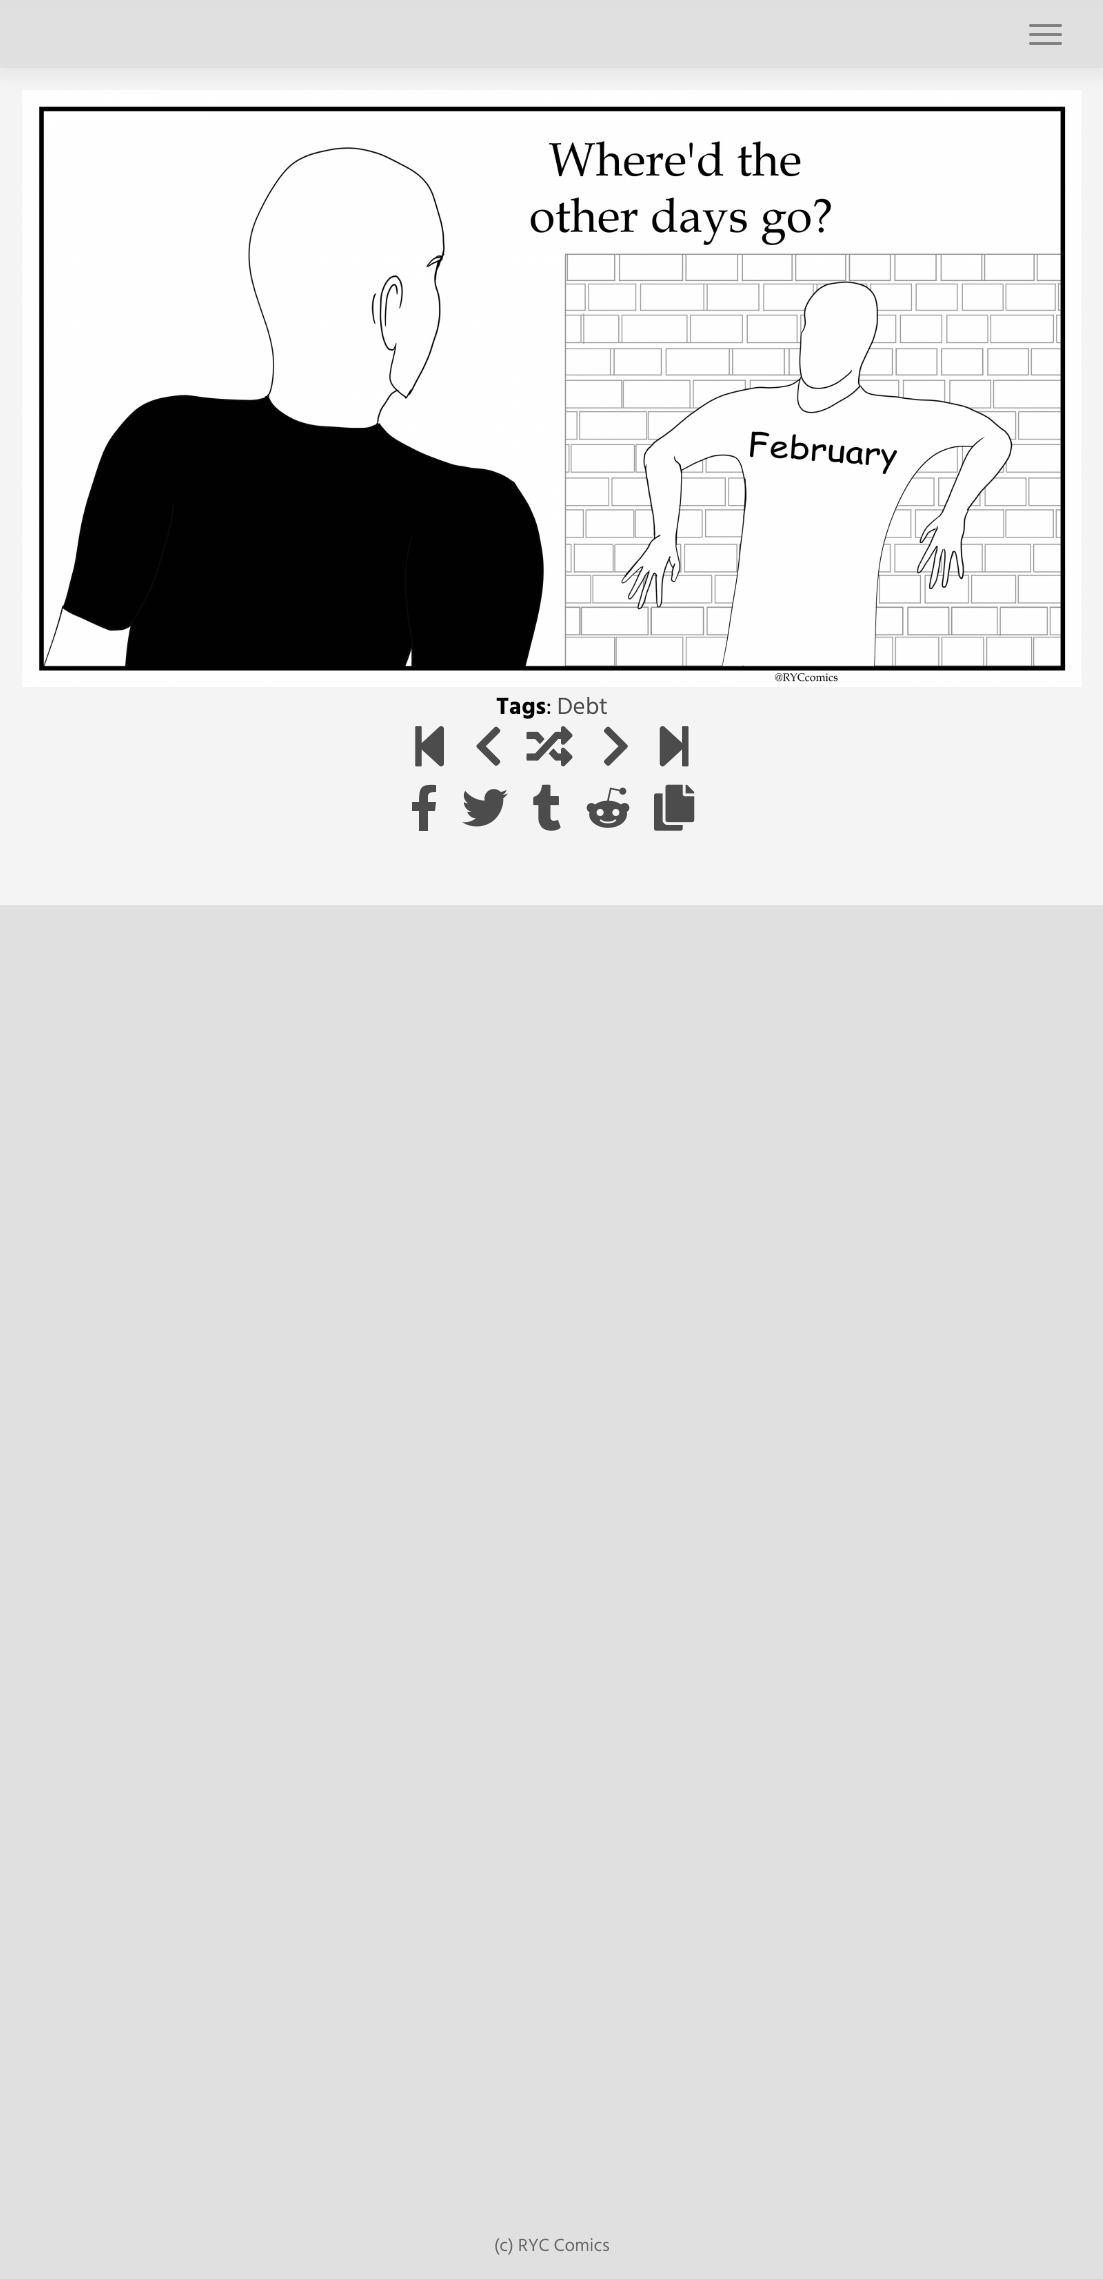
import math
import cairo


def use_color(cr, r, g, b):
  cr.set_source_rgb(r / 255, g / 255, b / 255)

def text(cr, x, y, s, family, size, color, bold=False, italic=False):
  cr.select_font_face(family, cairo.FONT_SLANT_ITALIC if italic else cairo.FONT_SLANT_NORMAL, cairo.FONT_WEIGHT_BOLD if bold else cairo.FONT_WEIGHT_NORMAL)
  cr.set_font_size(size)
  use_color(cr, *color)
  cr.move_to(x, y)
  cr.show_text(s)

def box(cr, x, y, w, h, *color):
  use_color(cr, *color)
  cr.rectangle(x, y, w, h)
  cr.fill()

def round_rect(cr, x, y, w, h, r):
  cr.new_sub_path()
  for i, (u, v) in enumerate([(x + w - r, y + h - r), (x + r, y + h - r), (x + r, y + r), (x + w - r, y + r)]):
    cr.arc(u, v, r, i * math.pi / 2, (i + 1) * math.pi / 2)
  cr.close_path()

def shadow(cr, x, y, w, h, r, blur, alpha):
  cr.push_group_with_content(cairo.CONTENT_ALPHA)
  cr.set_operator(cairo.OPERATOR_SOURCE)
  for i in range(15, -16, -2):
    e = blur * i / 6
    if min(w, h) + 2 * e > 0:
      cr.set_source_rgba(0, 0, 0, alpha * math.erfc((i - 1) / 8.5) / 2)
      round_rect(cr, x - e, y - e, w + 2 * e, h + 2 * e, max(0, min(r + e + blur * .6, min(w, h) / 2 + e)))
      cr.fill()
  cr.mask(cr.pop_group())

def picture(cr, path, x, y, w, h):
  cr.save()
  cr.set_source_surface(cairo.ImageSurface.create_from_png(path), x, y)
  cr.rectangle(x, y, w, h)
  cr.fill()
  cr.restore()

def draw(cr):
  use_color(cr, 224, 224, 224)
  cr.paint()
  box(cr, 0, 68, 1103, 837, 244, 244, 244)
  picture(cr, "img_01.png", 22, 90, 1060, 597)
  use_color(cr, 50, 50, 50)
  shadow(cr, 0, 8, 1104, 67, 0, 8, 0.08)
  box(cr, 0, 1, 1103, 67, 224, 224, 224)
  use_color(cr, 130, 130, 130)
  round_rect(cr, 1029, 24, 33, 3, 1.5)
  cr.fill()
  round_rect(cr, 1029, 33, 33, 3, 1.5)
  cr.fill()
  round_rect(cr, 1029, 42, 33, 3, 1.5)
  cr.fill()
  picture(cr, "img_02.png", 415, 726, 29, 41)
  picture(cr, "img_03.png", 476, 726, 25, 40)
  picture(cr, "img_04.png", 526, 726, 47, 41)
  picture(cr, "img_05.png", 604, 726, 24, 40)
  picture(cr, "img_06.png", 659, 726, 30, 41)
  use_color(cr, 76, 76, 76)
  cr.new_path()
  cr.move_to(435, 811)
  cr.line_to(428, 811)
  cr.line_to(428, 831)
  cr.line_to(419, 831)
  cr.line_to(419, 811)
  cr.line_to(412, 811)
  cr.line_to(412, 802)
  cr.line_to(419, 802)
  cr.curve_to(419, 787, 421, 784, 436, 785)
  cr.line_to(436, 792)
  cr.curve_to(427, 792, 428, 794, 428, 802)
  cr.line_to(436, 802)
  cr.close_path()
  cr.fill()
  picture(cr, "img_07.png", 462, 789, 46, 38)
  picture(cr, "img_08.png", 533, 784, 28, 47)
  picture(cr, "img_09.png", 586, 787, 44, 41)
  picture(cr, "img_10.png", 654, 784, 41, 47)
  text(cr, 496, 714, "Tags", "Hind", 24, (0, 0, 0), bold=True)
  text(cr, 546, 714, ":", "Hind", 24, (0, 0, 0))
  text(cr, 557, 714, "Debt", "Hind", 24, (76, 76, 76))
  text(cr, 494, 2251, "(c) RYC Comics", "Hind", 18, (104, 104, 104))


surface = cairo.ImageSurface(cairo.FORMAT_RGB24, 1103, 2279)
cr = cairo.Context(surface)
options = cairo.FontOptions()
options.set_hint_metrics(cairo.HINT_METRICS_OFF)
options.set_hint_style(cairo.HINT_STYLE_NONE)
cr.set_font_options(options)
cr.set_miter_limit(4)
draw(cr)
surface.write_to_png("out.png")
